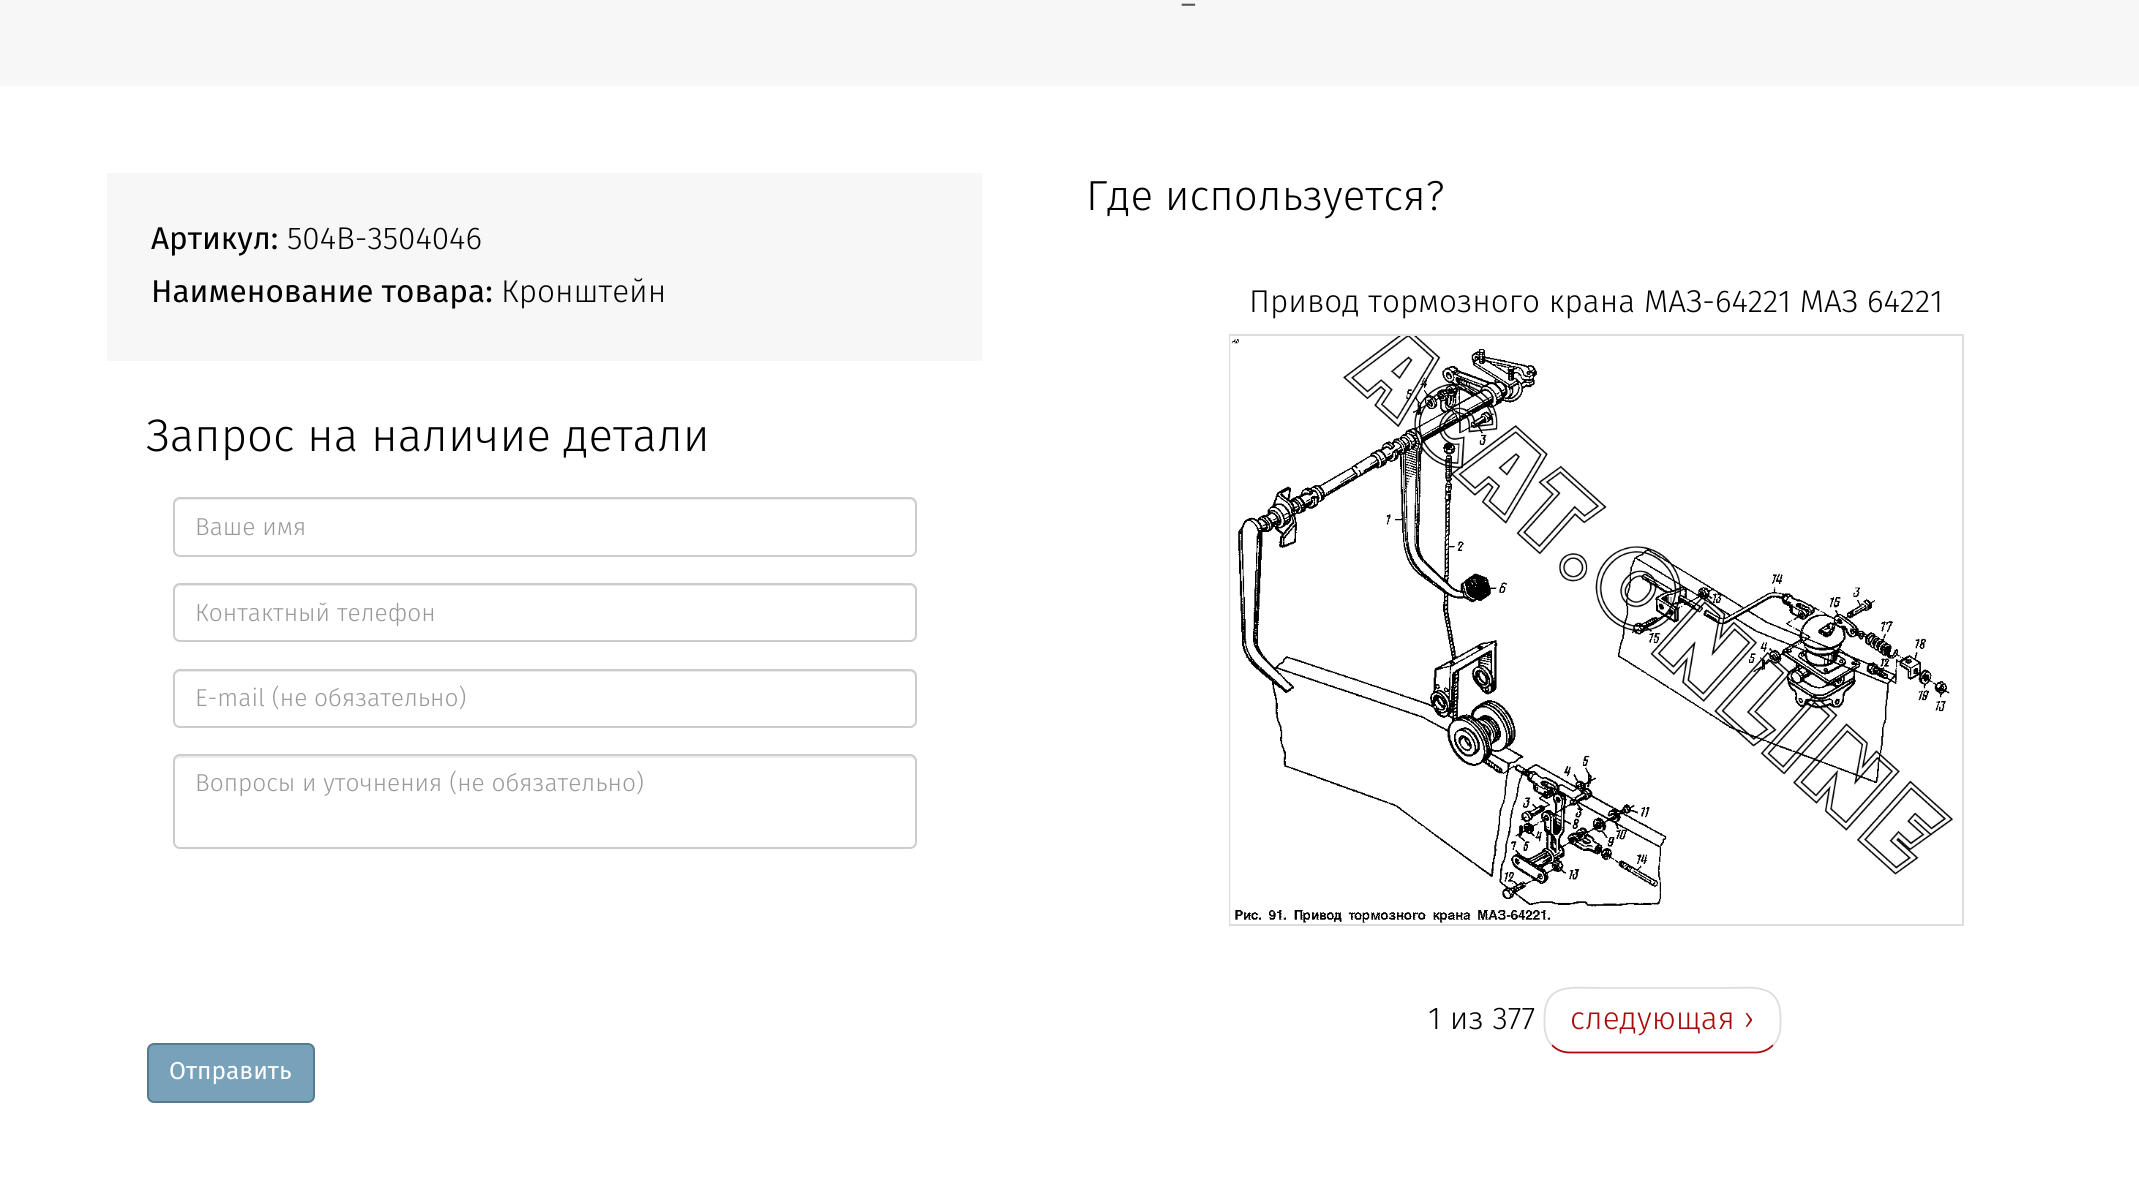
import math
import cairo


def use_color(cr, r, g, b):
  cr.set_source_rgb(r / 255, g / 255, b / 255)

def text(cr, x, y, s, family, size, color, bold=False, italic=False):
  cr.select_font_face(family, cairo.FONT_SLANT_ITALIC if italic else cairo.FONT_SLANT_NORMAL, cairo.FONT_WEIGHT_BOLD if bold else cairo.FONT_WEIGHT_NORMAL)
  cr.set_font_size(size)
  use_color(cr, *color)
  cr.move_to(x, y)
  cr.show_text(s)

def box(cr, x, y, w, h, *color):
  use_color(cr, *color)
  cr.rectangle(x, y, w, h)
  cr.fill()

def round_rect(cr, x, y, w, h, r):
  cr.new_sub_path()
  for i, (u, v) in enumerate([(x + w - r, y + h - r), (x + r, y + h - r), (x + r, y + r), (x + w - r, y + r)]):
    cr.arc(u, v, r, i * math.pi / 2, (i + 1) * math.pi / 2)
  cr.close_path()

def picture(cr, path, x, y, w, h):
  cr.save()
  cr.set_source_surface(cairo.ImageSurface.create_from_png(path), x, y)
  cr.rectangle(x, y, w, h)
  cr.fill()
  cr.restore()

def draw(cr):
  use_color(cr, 255, 255, 255)
  cr.paint()
  box(cr, 0, 0, 2139, 86, 247, 247, 247)
  box(cr, 107, 173, 875, 188, 247, 247, 247)
  use_color(cr, 236, 236, 236)
  cr.new_path()
  cr.move_to(180, 500)
  cr.line_to(910, 500)
  cr.curve_to(913, 500, 915, 503, 915, 506)
  cr.line_to(915, 504)
  cr.curve_to(915, 501, 913, 499, 910, 499)
  cr.line_to(180, 499)
  cr.curve_to(177, 499, 175, 501, 175, 504)
  cr.line_to(175, 506)
  cr.curve_to(175, 503, 177, 500, 180, 500)
  cr.close_path()
  cr.fill()
  round_rect(cr, 174, 498, 742, 58, 6)
  use_color(cr, 204, 204, 204)
  cr.stroke()
  use_color(cr, 236, 236, 236)
  cr.new_path()
  cr.move_to(180, 586)
  cr.line_to(910, 586)
  cr.curve_to(913, 586, 915, 589, 915, 592)
  cr.line_to(915, 590)
  cr.curve_to(915, 587, 913, 585, 910, 585)
  cr.line_to(180, 585)
  cr.curve_to(177, 585, 175, 587, 175, 590)
  cr.line_to(175, 592)
  cr.curve_to(175, 589, 177, 586, 180, 586)
  cr.close_path()
  cr.fill()
  round_rect(cr, 174, 584, 742, 57, 6)
  use_color(cr, 204, 204, 204)
  cr.stroke()
  use_color(cr, 236, 236, 236)
  cr.new_path()
  cr.move_to(180, 672)
  cr.line_to(910, 672)
  cr.curve_to(913, 672, 915, 674, 915, 677)
  cr.line_to(915, 675)
  cr.curve_to(915, 672, 913, 670, 910, 670)
  cr.line_to(180, 670)
  cr.curve_to(177, 670, 175, 672, 175, 675)
  cr.line_to(175, 677)
  cr.curve_to(175, 674, 177, 672, 180, 672)
  cr.close_path()
  cr.fill()
  round_rect(cr, 174, 670, 742, 57, 6)
  use_color(cr, 204, 204, 204)
  cr.stroke()
  use_color(cr, 236, 236, 236)
  cr.new_path()
  cr.move_to(180, 758)
  cr.line_to(910, 758)
  cr.curve_to(913, 758, 915, 760, 915, 763)
  cr.line_to(915, 761)
  cr.curve_to(915, 758, 913, 756, 910, 756)
  cr.line_to(180, 756)
  cr.curve_to(177, 756, 175, 758, 175, 761)
  cr.line_to(175, 763)
  cr.curve_to(175, 760, 177, 758, 180, 758)
  cr.close_path()
  cr.fill()
  round_rect(cr, 174, 755, 742, 93, 6)
  use_color(cr, 204, 204, 204)
  cr.stroke()
  use_color(cr, 120, 162, 186)
  round_rect(cr, 148, 1044, 166, 58, 6)
  cr.fill_preserve()
  use_color(cr, 85, 123, 145)
  cr.stroke()
  cr.rectangle(1230, 335, 733, 590)
  use_color(cr, 221, 221, 221)
  cr.stroke()
  picture(cr, "img_01.png", 1230, 336, 723, 588)
  cr.new_path()
  cr.move_to(1773, 1045)
  cr.curve_to(1768.5, 1050, 1762, 1052.5, 1755, 1052.5)
  cr.line_to(1570, 1052.5)
  cr.curve_to(1563, 1052.5, 1556.5, 1050, 1552, 1045)
  use_color(cr, 167, 10, 10)
  cr.set_line_width(1.8)
  cr.stroke()
  cr.new_path()
  cr.move_to(1552, 1045)
  cr.curve_to(1544, 1037.5, 1544.5, 1028, 1544.5, 1018)
  cr.curve_to(1544.5, 982, 1572.5, 988, 1600.5, 988)
  cr.line_to(1724.5, 988)
  cr.curve_to(1752.5, 988, 1780.5, 982, 1780.5, 1018)
  cr.curve_to(1780.5, 1028, 1781, 1037.5, 1773, 1045)
  use_color(cr, 221, 221, 221)
  cr.stroke()
  text(cr, 1178, 21, "-", "Fira Sans ExtraLight", 52, (85, 85, 85))
  text(cr, 151, 249, "Артикул:", "Fira Sans", 31.5, (0, 0, 0))
  text(cr, 287, 249, "504В-3504046", "Fira Sans Light", 31.5, (0, 0, 0))
  text(cr, 151, 302, "Наименование товара:", "Fira Sans", 31.5, (0, 0, 0))
  text(cr, 501, 302, "Кронштейн", "Fira Sans Light", 31.5, (0, 0, 0))
  text(cr, 146, 451, "Запрос на наличие детали", "Fira Sans Light", 45.5, (0, 0, 0))
  text(cr, 195, 535, "Ваше имя", "Fira Sans Light", 24.5, (153, 153, 153))
  text(cr, 195, 621, "Контактный телефон", "Fira Sans Light", 24.5, (153, 153, 153))
  text(cr, 195, 706, "E-mail (не обязательно)", "Fira Sans Light", 24.5, (153, 153, 153))
  text(cr, 195, 791, "Вопросы и уточнения (не обязательно)", "Fira Sans Light", 24.5, (153, 153, 153))
  text(cr, 169, 1079, "Отправить", "Fira Sans", 24.5, (255, 255, 255))
  text(cr, 1086, 210, "Где используется?", "Fira Sans Light", 42, (0, 0, 0))
  text(cr, 1249, 312, "Привод тормозного крана МАЗ-64221 МАЗ 64221", "Fira Sans Light", 31.5, (0, 0, 0))
  text(cr, 1428, 1029, "1 из 377", "Fira Sans Light", 31.5, (0, 0, 0))
  text(cr, 1570, 1029, "следующая ›", "Fira Sans Light", 31.5, (167, 10, 10))


surface = cairo.ImageSurface(cairo.FORMAT_RGB24, 2139, 1193)
cr = cairo.Context(surface)
options = cairo.FontOptions()
options.set_hint_metrics(cairo.HINT_METRICS_OFF)
options.set_hint_style(cairo.HINT_STYLE_NONE)
cr.set_font_options(options)
cr.set_miter_limit(4)
draw(cr)
surface.write_to_png("out.png")
